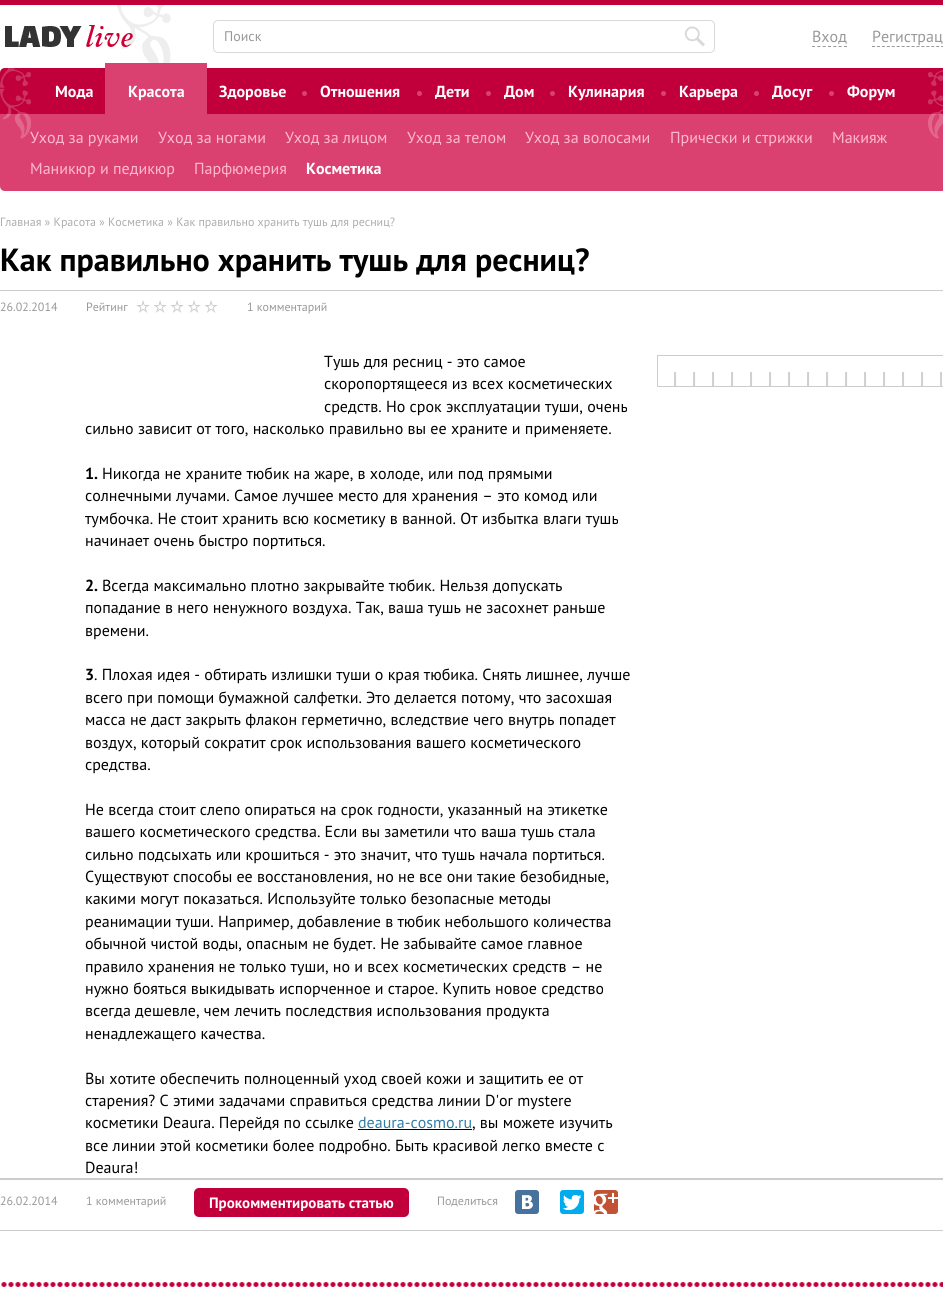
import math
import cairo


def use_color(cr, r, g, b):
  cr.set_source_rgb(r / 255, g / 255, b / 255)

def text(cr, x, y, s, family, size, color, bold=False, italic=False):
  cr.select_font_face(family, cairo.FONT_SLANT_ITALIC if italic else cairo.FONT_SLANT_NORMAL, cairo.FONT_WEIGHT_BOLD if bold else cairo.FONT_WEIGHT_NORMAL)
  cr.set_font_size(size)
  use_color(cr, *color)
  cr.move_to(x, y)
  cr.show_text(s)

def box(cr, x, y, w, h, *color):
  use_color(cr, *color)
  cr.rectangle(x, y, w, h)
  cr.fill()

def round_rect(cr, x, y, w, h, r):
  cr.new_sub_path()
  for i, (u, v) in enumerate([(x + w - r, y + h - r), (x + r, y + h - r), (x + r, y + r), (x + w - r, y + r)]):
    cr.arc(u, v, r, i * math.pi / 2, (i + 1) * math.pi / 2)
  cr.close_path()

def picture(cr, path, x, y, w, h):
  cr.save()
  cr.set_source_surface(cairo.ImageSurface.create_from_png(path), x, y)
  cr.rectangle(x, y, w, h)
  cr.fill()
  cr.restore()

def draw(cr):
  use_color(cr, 255, 255, 255)
  cr.paint()
  box(cr, 0, 0, 943, 5, 193, 0, 59)
  picture(cr, "img_02.png", 117, 5, 54, 58)
  picture(cr, "img_01.png", 5, 25, 128, 22)
  picture(cr, "img_03.png", 684, 26, 21, 21)
  round_rect(cr, 213.5, 20.5, 501, 32, 4.5)
  use_color(cr, 217, 217, 217)
  cr.set_line_width(1)
  cr.stroke()
  cr.new_path()
  cr.move_to(812, 46.5)
  cr.line_to(847, 46.5)
  use_color(cr, 153, 153, 153)
  cr.set_dash([3, 2.33])
  cr.stroke()
  cr.new_path()
  cr.move_to(872, 46.5)
  cr.line_to(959, 46.5)
  cr.set_dash([3, 1.94])
  cr.stroke()
  use_color(cr, 193, 0, 59)
  cr.new_path()
  cr.move_to(5, 68)
  cr.line_to(943, 68)
  cr.curve_to(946, 68, 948, 70, 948, 73)
  cr.line_to(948, 114)
  cr.line_to(0, 114)
  cr.line_to(0, 73)
  cr.curve_to(0, 70, 2, 68, 5, 68)
  cr.close_path()
  cr.fill()
  box(cr, 105, 63, 102, 51, 218, 65, 112)
  cr.arc(304.5, 93.5, 2.5, 0, 2 * math.pi)
  cr.fill()
  cr.arc(419.5, 93.5, 2.5, 0, 2 * math.pi)
  cr.fill()
  cr.arc(488.5, 93.5, 2.5, 0, 2 * math.pi)
  cr.fill()
  cr.arc(552.5, 93.5, 2.5, 0, 2 * math.pi)
  cr.fill()
  cr.arc(663.5, 93.5, 2.5, 0, 2 * math.pi)
  cr.fill()
  cr.arc(756.5, 93.5, 2.5, 0, 2 * math.pi)
  cr.fill()
  cr.arc(831.5, 93.5, 2.5, 0, 2 * math.pi)
  cr.fill()
  cr.new_path()
  cr.move_to(0, 114)
  cr.line_to(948, 114)
  cr.line_to(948, 186)
  cr.curve_to(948, 189, 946, 191, 943, 191)
  cr.line_to(5, 191)
  cr.curve_to(2, 191, 0, 189, 0, 186)
  cr.close_path()
  cr.fill()
  picture(cr, "img_05.png", 928, 70, 15, 69)
  box(cr, 0, 290, 943, 1, 204, 204, 204)
  box(cr, 0, 1230, 943, 1, 204, 204, 204)
  picture(cr, "img_06.png", 136, 300, 82, 13)
  box(cr, 358, 1129, 114, 1, 0, 0, 0)
  picture(cr, "img_07.png", 674, 372, 268, 14)
  cr.rectangle(657.5, 355.5, 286, 31)
  use_color(cr, 204, 204, 204)
  cr.set_dash([])
  cr.stroke()
  box(cr, 0, 1178, 943, 2, 204, 204, 204)
  use_color(cr, 193, 0, 59)
  round_rect(cr, 194, 1188, 215, 29, 5)
  cr.fill()
  use_color(cr, 72, 114, 158)
  round_rect(cr, 515, 1190, 24, 24, 3)
  cr.fill()
  picture(cr, "img_08.png", 522, 1195, 11, 14)
  use_color(cr, 0, 172, 237)
  round_rect(cr, 560, 1190, 24, 24, 3)
  cr.fill()
  picture(cr, "img_09.png", 563, 1195, 18, 15)
  use_color(cr, 194, 82, 52)
  round_rect(cr, 594, 1190, 24, 24, 3)
  cr.fill()
  picture(cr, "img_10.png", 594, 1193, 24, 21)
  picture(cr, "img_11.png", 1, 1282, 942, 5)
  text(cr, 224, 41, "Поиск", "PT Sans", 14, (153, 153, 153))
  text(cr, 812, 42, "Вход", "PT Sans", 16, (153, 153, 153))
  text(cr, 872, 42, "Регистрац", "PT Sans", 16, (153, 153, 153))
  text(cr, 55, 97, "Мода", "PT Sans", 16, (255, 255, 255), bold=True)
  text(cr, 128, 97, "Красота", "PT Sans", 16, (255, 255, 255), bold=True)
  text(cr, 219, 97, "Здоровье", "PT Sans", 16, (255, 255, 255), bold=True)
  text(cr, 320, 97, "Отношения", "PT Sans", 16, (255, 255, 255), bold=True)
  text(cr, 435, 97, "Дети", "PT Sans", 16, (255, 255, 255), bold=True)
  text(cr, 504, 97, "Дом", "PT Sans", 16, (255, 255, 255), bold=True)
  text(cr, 568, 97, "Кулинария", "PT Sans", 16, (255, 255, 255), bold=True)
  text(cr, 679, 97, "Карьера", "PT Sans", 16, (255, 255, 255), bold=True)
  text(cr, 772, 97, "Досуг", "PT Sans", 16, (255, 255, 255), bold=True)
  text(cr, 847, 97, "Форум", "PT Sans", 16, (255, 255, 255), bold=True)
  text(cr, 30, 143, "Уход за руками", "PT Sans", 16, (255, 185, 206))
  picture(cr, "img_04.png", 0, 68, 31, 71)
  text(cr, 158, 143, "Уход за ногами", "PT Sans", 16, (255, 185, 206))
  text(cr, 285, 143, "Уход за лицом", "PT Sans", 16, (255, 185, 206))
  text(cr, 407, 143, "Уход за телом", "PT Sans", 16, (255, 185, 206))
  text(cr, 525, 143, "Уход за волосами", "PT Sans", 16, (255, 185, 206))
  text(cr, 670, 143, "Прически и стрижки", "PT Sans", 16, (255, 185, 206))
  text(cr, 832, 143, "Макияж", "PT Sans", 16, (255, 185, 206))
  text(cr, 30, 174, "Маникюр и педикюр", "PT Sans", 16, (255, 185, 206))
  text(cr, 194, 174, "Парфюмерия", "PT Sans", 16, (255, 185, 206))
  text(cr, 306, 174, "Косметика", "PT Sans", 16, (255, 255, 255), bold=True)
  text(cr, 0, 226, "Главная » Красота » Косметика » Как правильно хранить тушь для ресниц?", "PT Sans", 12, (173, 173, 173))
  text(cr, 0, 271, "Как правильно хранить тушь для ресниц?", "PT Sans", 32, (0, 0, 0), bold=True)
  text(cr, 0, 311, "26.02.2014", "PT Sans", 12, (153, 153, 153))
  text(cr, 86, 311, "Рейтинг", "PT Sans", 12, (153, 153, 153))
  text(cr, 247, 311, "1 комментарий", "PT Sans", 12, (153, 153, 153))
  text(cr, 324, 367, "Тушь для ресниц - это самое", "PT Sans", 16, (0, 0, 0))
  text(cr, 324, 389, "скоропортящееся из всех косметических", "PT Sans", 16, (0, 0, 0))
  text(cr, 324, 412, "средств. Но срок эксплуатации туши, очень", "PT Sans", 16, (0, 0, 0))
  text(cr, 85, 434, "сильно зависит от того, насколько правильно вы ее храните и применяете.", "PT Sans", 16, (0, 0, 0))
  text(cr, 85, 479, "1.", "PT Sans", 16, (0, 0, 0), bold=True)
  text(cr, 102, 479, "Никогда не храните тюбик на жаре, в холоде, или под прямыми", "PT Sans", 16, (0, 0, 0))
  text(cr, 85, 501, "солнечными лучами. Самое лучшее место для хранения – это комод или", "PT Sans", 16, (0, 0, 0))
  text(cr, 85, 524, "тумбочка. Не стоит хранить всю косметику в ванной. От избытка влаги тушь", "PT Sans", 16, (0, 0, 0))
  text(cr, 85, 546, "начинает очень быстро портиться.", "PT Sans", 16, (0, 0, 0))
  text(cr, 85, 591, "2.", "PT Sans", 16, (0, 0, 0), bold=True)
  text(cr, 102, 591, "Всегда максимально плотно закрывайте тюбик. Нельзя допускать", "PT Sans", 16, (0, 0, 0))
  text(cr, 85, 613, "попадание в него ненужного воздуха. Так, ваша тушь не засохнет раньше", "PT Sans", 16, (0, 0, 0))
  text(cr, 85, 636, "времени.", "PT Sans", 16, (0, 0, 0))
  text(cr, 85, 680, "3", "PT Sans", 16, (0, 0, 0), bold=True)
  text(cr, 94, 680, ". Плохая идея - обтирать излишки туши о края тюбика. Снять лишнее, лучше", "PT Sans", 16, (0, 0, 0))
  text(cr, 85, 703, "всего при помощи бумажной салфетки. Это делается потому, что засохшая", "PT Sans", 16, (0, 0, 0))
  text(cr, 85, 725, "масса не даст закрыть флакон герметично, вследствие чего внутрь попадет", "PT Sans", 16, (0, 0, 0))
  text(cr, 85, 748, "воздух, который сократит срок использования вашего косметического", "PT Sans", 16, (0, 0, 0))
  text(cr, 85, 770, "средства.", "PT Sans", 16, (0, 0, 0))
  text(cr, 85, 815, "Не всегда стоит слепо опираться на срок годности, указанный на этикетке", "PT Sans", 16, (0, 0, 0))
  text(cr, 85, 837, "вашего косметического средства. Если вы заметили что ваша тушь стала", "PT Sans", 16, (0, 0, 0))
  text(cr, 85, 860, "сильно подсыхать или крошиться - это значит, что тушь начала портиться.", "PT Sans", 16, (0, 0, 0))
  text(cr, 85, 882, "Существуют способы ее восстановления, но не все они такие безобидные,", "PT Sans", 16, (0, 0, 0))
  text(cr, 85, 904, "какими могут показаться. Используйте только безопасные методы", "PT Sans", 16, (0, 0, 0))
  text(cr, 85, 927, "реанимации туши. Например, добавление в тюбик небольшого количества", "PT Sans", 16, (0, 0, 0))
  text(cr, 85, 949, "обычной чистой воды, опасным не будет. Не забывайте самое главное", "PT Sans", 16, (0, 0, 0))
  text(cr, 85, 972, "правило хранения не только туши, но и всех косметических средств – не", "PT Sans", 16, (0, 0, 0))
  text(cr, 85, 994, "нужно бояться выкидывать испорченное и старое. Купить новое средство", "PT Sans", 16, (0, 0, 0))
  text(cr, 85, 1016, "всегда дешевле, чем лечить последствия использования продукта", "PT Sans", 16, (0, 0, 0))
  text(cr, 85, 1039, "ненадлежащего качества.", "PT Sans", 16, (0, 0, 0))
  text(cr, 85, 1084, "Вы хотите обеспечить полноценный уход своей кожи и защитить ее от", "PT Sans", 16, (0, 0, 0))
  text(cr, 85, 1106, "старения? С этими задачами справиться средства линии D'or mystere", "PT Sans", 16, (0, 0, 0))
  text(cr, 85, 1128, "косметики Deaura. Перейдя по ссылке", "PT Sans", 16, (0, 0, 0))
  text(cr, 358, 1128, "deaura-cosmo.ru", "PT Sans", 16, (51, 124, 166))
  text(cr, 472, 1128, ", вы можете изучить", "PT Sans", 16, (0, 0, 0))
  text(cr, 85, 1151, "все линии этой косметики более подробно. Быть красивой легко вместе с", "PT Sans", 16, (0, 0, 0))
  text(cr, 85, 1173, "Deaura!", "PT Sans", 16, (0, 0, 0))
  text(cr, 0, 1205, "26.02.2014", "PT Sans", 12, (153, 153, 153))
  text(cr, 86, 1205, "1 комментарий", "PT Sans", 12, (153, 153, 153))
  text(cr, 209, 1208, "Прокомментировать статью", "PT Sans", 15, (255, 255, 255), bold=True)
  text(cr, 437, 1205, "Поделиться", "PT Sans", 12, (153, 153, 153))


surface = cairo.ImageSurface(cairo.FORMAT_RGB24, 943, 1310)
cr = cairo.Context(surface)
options = cairo.FontOptions()
options.set_hint_metrics(cairo.HINT_METRICS_OFF)
options.set_hint_style(cairo.HINT_STYLE_NONE)
cr.set_font_options(options)
cr.set_miter_limit(4)
draw(cr)
surface.write_to_png("out.png")
